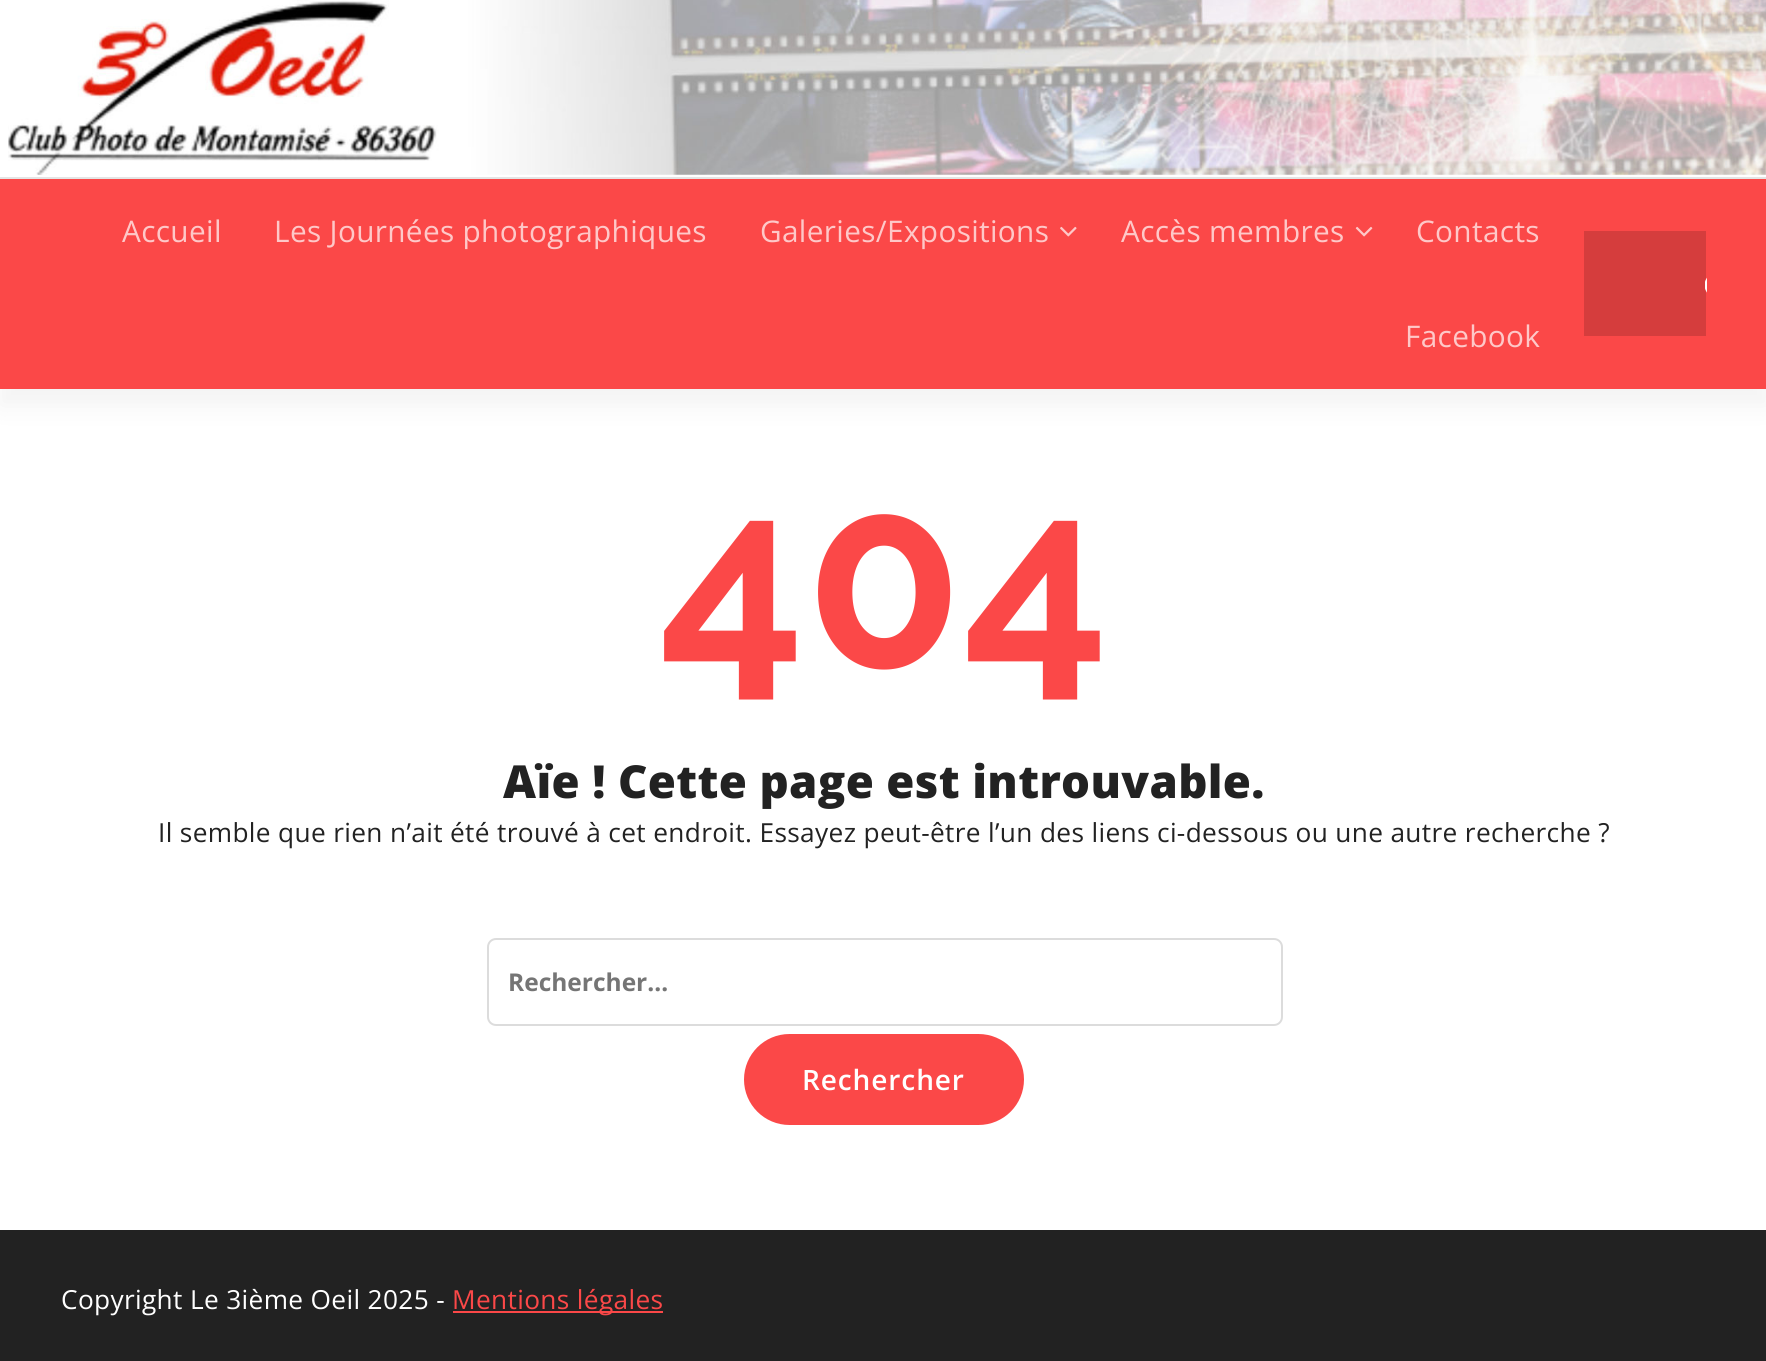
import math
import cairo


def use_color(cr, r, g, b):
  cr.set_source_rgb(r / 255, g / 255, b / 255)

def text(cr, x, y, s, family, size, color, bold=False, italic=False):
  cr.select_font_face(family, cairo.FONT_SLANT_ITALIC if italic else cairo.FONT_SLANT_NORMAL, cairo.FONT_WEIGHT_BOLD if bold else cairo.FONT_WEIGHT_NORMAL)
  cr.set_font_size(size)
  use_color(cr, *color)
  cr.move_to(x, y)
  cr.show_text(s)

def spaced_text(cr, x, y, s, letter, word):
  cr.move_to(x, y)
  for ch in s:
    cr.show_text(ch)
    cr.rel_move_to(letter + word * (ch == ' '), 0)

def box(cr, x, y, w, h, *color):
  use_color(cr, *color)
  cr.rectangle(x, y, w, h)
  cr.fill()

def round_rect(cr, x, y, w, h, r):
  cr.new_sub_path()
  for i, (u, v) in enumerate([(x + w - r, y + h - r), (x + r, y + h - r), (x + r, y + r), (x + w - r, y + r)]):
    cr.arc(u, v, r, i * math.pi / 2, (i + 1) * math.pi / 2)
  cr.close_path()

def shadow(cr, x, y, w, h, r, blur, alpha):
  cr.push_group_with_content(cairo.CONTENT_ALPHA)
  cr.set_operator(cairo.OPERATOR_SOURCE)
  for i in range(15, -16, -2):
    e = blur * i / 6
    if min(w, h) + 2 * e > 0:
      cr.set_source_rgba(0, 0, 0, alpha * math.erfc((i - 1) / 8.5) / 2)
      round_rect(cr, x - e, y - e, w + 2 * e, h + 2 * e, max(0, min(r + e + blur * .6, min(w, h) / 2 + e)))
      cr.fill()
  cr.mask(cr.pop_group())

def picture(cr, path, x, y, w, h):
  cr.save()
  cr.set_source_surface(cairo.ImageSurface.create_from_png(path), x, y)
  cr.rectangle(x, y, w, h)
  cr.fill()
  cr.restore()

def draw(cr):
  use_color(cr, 255, 255, 255)
  cr.paint()
  picture(cr, "img_01.png", 8, 0, 1758, 175)
  box(cr, 0, 177, 1766, 2, 229, 229, 229)
  use_color(cr, 0, 0, 0)
  shadow(cr, 0, 196, 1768, 210, 0, 13, 0.05)
  box(cr, 0, 179, 1766, 210, 251, 72, 72)
  picture(cr, "img_02.png", 1060, 226, 17, 11)
  picture(cr, "img_03.png", 1355, 226, 18, 11)
  box(cr, 1584, 231, 122, 105, 213, 61, 61)
  picture(cr, "img_04.png", 1705, 277, 2, 16)
  round_rect(cr, 488, 939, 794, 86, 8)
  use_color(cr, 220, 220, 220)
  cr.stroke()
  use_color(cr, 251, 72, 72)
  round_rect(cr, 746, 1036, 276, 87, 43.5)
  cr.fill_preserve()
  cr.set_line_width(4)
  cr.stroke()
  box(cr, 0, 1230, 1766, 131, 34, 34, 34)
  box(cr, 453, 1311, 210, 2, 251, 72, 72)
  cr.select_font_face("Open Sans")
  cr.set_font_size(29.75)
  use_color(cr, 254, 200, 200)
  spaced_text(cr, 122, 242, "Accueil", 0.35, 0)
  spaced_text(cr, 274, 242, "Les Journées photographiques", 0.35, 0)
  spaced_text(cr, 760, 242, "Galeries/Expositions", 0.35, 0)
  spaced_text(cr, 1121, 242, "Accès membres", 0.35, 0)
  spaced_text(cr, 1416, 242, "Contacts", 0.35, 0)
  spaced_text(cr, 1405, 347, "Facebook", 0.35, 0)
  cr.select_font_face("Raleway", cairo.FONT_SLANT_NORMAL, cairo.FONT_WEIGHT_BOLD)
  cr.set_font_size(256)
  use_color(cr, 251, 72, 72)
  spaced_text(cr, 659, 667, "404", 0.35, 0)
  cr.select_font_face("Open Sans ExtraBold")
  cr.set_font_size(45.5)
  use_color(cr, 34, 34, 34)
  spaced_text(cr, 503, 798, "Aïe ! Cette page est introuvable.", 0.35, 0)
  cr.select_font_face("Open Sans")
  cr.set_font_size(26.25)
  spaced_text(cr, 158, 842, "Il semble que rien n’ait été trouvé à cet endroit. Essayez peut-être l’un des liens ci-dessous ou une autre recherche ?", 0.35, 0)
  text(cr, 508, 991, "Rechercher…", "Open Sans", 24.5, (117, 117, 117), bold=True)
  cr.select_font_face("Open Sans SemiBold")
  cr.set_font_size(28)
  use_color(cr, 255, 255, 255)
  spaced_text(cr, 802, 1090, "Rechercher", 0.9, 0)
  cr.select_font_face("Open Sans")
  cr.set_font_size(26.25)
  spaced_text(cr, 61, 1309, "Copyright Le 3ième Oeil 2025 -", 0.35, 0)
  use_color(cr, 251, 72, 72)
  spaced_text(cr, 452, 1309, "Mentions légales", 0.35, 0)


surface = cairo.ImageSurface(cairo.FORMAT_RGB24, 1766, 1361)
cr = cairo.Context(surface)
options = cairo.FontOptions()
options.set_hint_metrics(cairo.HINT_METRICS_OFF)
options.set_hint_style(cairo.HINT_STYLE_NONE)
cr.set_font_options(options)
cr.set_miter_limit(4)
draw(cr)
surface.write_to_png("out.png")
